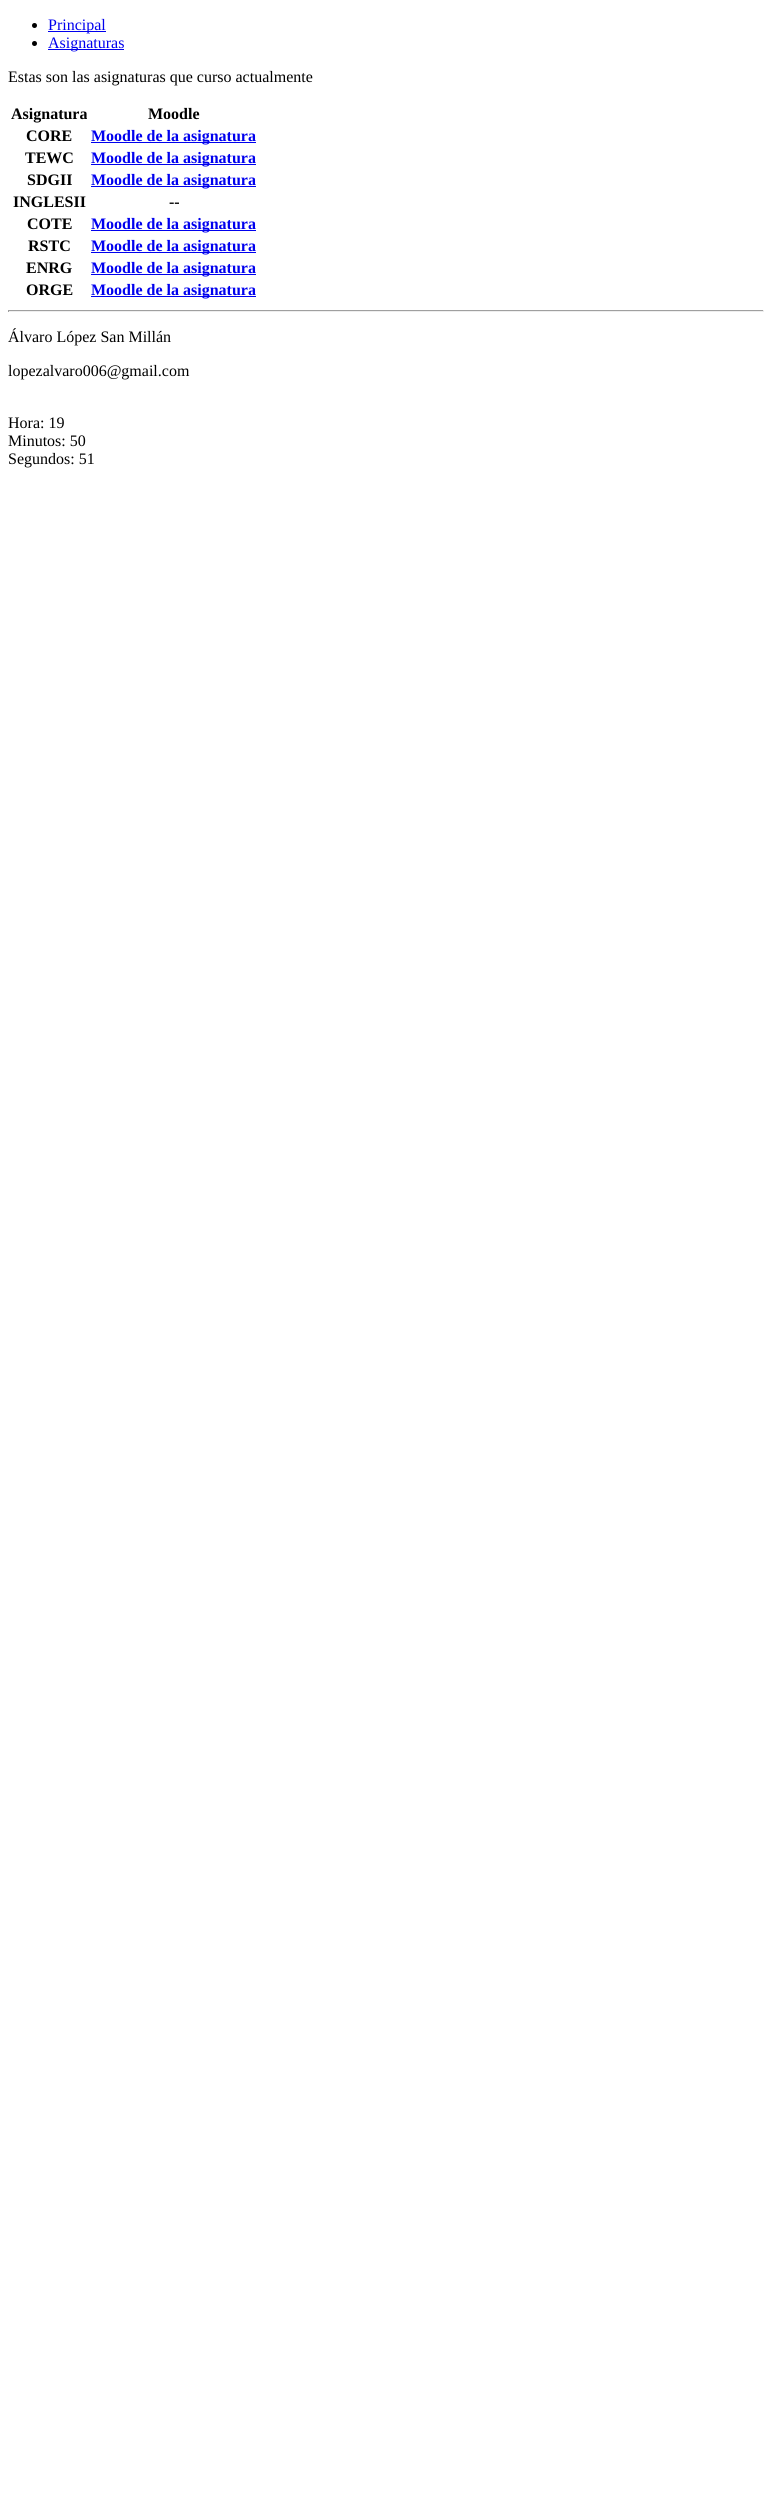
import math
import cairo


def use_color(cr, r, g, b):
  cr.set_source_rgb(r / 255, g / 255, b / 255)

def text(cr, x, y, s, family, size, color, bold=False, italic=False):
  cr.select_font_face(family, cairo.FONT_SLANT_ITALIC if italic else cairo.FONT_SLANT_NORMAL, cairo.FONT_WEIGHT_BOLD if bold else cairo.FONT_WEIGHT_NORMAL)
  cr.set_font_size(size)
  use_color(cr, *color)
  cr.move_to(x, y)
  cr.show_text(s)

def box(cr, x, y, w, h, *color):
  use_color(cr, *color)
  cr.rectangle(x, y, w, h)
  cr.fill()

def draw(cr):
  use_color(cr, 255, 255, 255)
  cr.paint()
  use_color(cr, 0, 0, 0)
  cr.arc(34.5, 25.5, 2.5, 0, 2 * math.pi)
  cr.fill()
  box(cr, 48, 31, 58, 1, 0, 0, 238)
  use_color(cr, 0, 0, 0)
  cr.arc(34.5, 43.5, 2.5, 0, 2 * math.pi)
  cr.fill()
  box(cr, 48, 49, 76, 1, 0, 0, 238)
  box(cr, 91, 142, 165, 1, 0, 0, 238)
  box(cr, 91, 164, 165, 1, 0, 0, 238)
  box(cr, 91, 186, 165, 1, 0, 0, 238)
  box(cr, 91, 230, 165, 1, 0, 0, 238)
  box(cr, 91, 252, 165, 1, 0, 0, 238)
  box(cr, 91, 274, 165, 1, 0, 0, 238)
  box(cr, 91, 296, 165, 1, 0, 0, 238)
  box(cr, 8, 310, 756, 1, 159, 159, 159)
  box(cr, 763, 310, 1, 2, 238, 238, 238)
  box(cr, 8, 311, 756, 1, 238, 238, 238)
  box(cr, 8, 310, 1, 2, 159, 159, 159)
  text(cr, 48, 30, "Principal", "Liberation Serif", 16, (0, 0, 238))
  text(cr, 48, 48, "Asignaturas", "Liberation Serif", 16, (0, 0, 238))
  text(cr, 8, 82, "Estas son las asignaturas que curso actualmente", "Liberation Serif", 16, (0, 0, 0))
  text(cr, 11, 119, "Asignatura", "Liberation Serif", 16, (0, 0, 0), bold=True)
  text(cr, 148, 119, "Moodle", "Liberation Serif", 16, (0, 0, 0), bold=True)
  text(cr, 26, 141, "CORE", "Liberation Serif", 16, (0, 0, 0), bold=True)
  text(cr, 91, 141, "Moodle de la asignatura", "Liberation Serif", 16, (0, 0, 238), bold=True)
  text(cr, 25, 163, "TEWC", "Liberation Serif", 16, (0, 0, 0), bold=True)
  text(cr, 91, 163, "Moodle de la asignatura", "Liberation Serif", 16, (0, 0, 238), bold=True)
  text(cr, 27, 185, "SDGII", "Liberation Serif", 16, (0, 0, 0), bold=True)
  text(cr, 91, 185, "Moodle de la asignatura", "Liberation Serif", 16, (0, 0, 238), bold=True)
  text(cr, 13, 207, "INGLESII", "Liberation Serif", 16, (0, 0, 0), bold=True)
  text(cr, 169, 207, "--", "Liberation Serif", 16, (0, 0, 0), bold=True)
  text(cr, 27, 229, "COTE", "Liberation Serif", 16, (0, 0, 0), bold=True)
  text(cr, 91, 229, "Moodle de la asignatura", "Liberation Serif", 16, (0, 0, 238), bold=True)
  text(cr, 28, 251, "RSTC", "Liberation Serif", 16, (0, 0, 0), bold=True)
  text(cr, 91, 251, "Moodle de la asignatura", "Liberation Serif", 16, (0, 0, 238), bold=True)
  text(cr, 26, 273, "ENRG", "Liberation Serif", 16, (0, 0, 0), bold=True)
  text(cr, 91, 273, "Moodle de la asignatura", "Liberation Serif", 16, (0, 0, 238), bold=True)
  text(cr, 26, 295, "ORGE", "Liberation Serif", 16, (0, 0, 0), bold=True)
  text(cr, 91, 295, "Moodle de la asignatura", "Liberation Serif", 16, (0, 0, 238), bold=True)
  text(cr, 8, 342, "Álvaro López San Millán", "Liberation Serif", 16, (0, 0, 0))
  text(cr, 8, 376, "lopezalvaro006@gmail.com", "Liberation Serif", 16, (0, 0, 0))
  text(cr, 8, 428, "Hora: 19", "Liberation Serif", 16, (0, 0, 0))
  text(cr, 8, 446, "Minutos: 50", "Liberation Serif", 16, (0, 0, 0))
  text(cr, 8, 464, "Segundos: 51", "Liberation Serif", 16, (0, 0, 0))


surface = cairo.ImageSurface(cairo.FORMAT_RGB24, 772, 2500)
cr = cairo.Context(surface)
options = cairo.FontOptions()
options.set_hint_metrics(cairo.HINT_METRICS_OFF)
options.set_hint_style(cairo.HINT_STYLE_NONE)
cr.set_font_options(options)
cr.set_miter_limit(4)
draw(cr)
surface.write_to_png("out.png")
